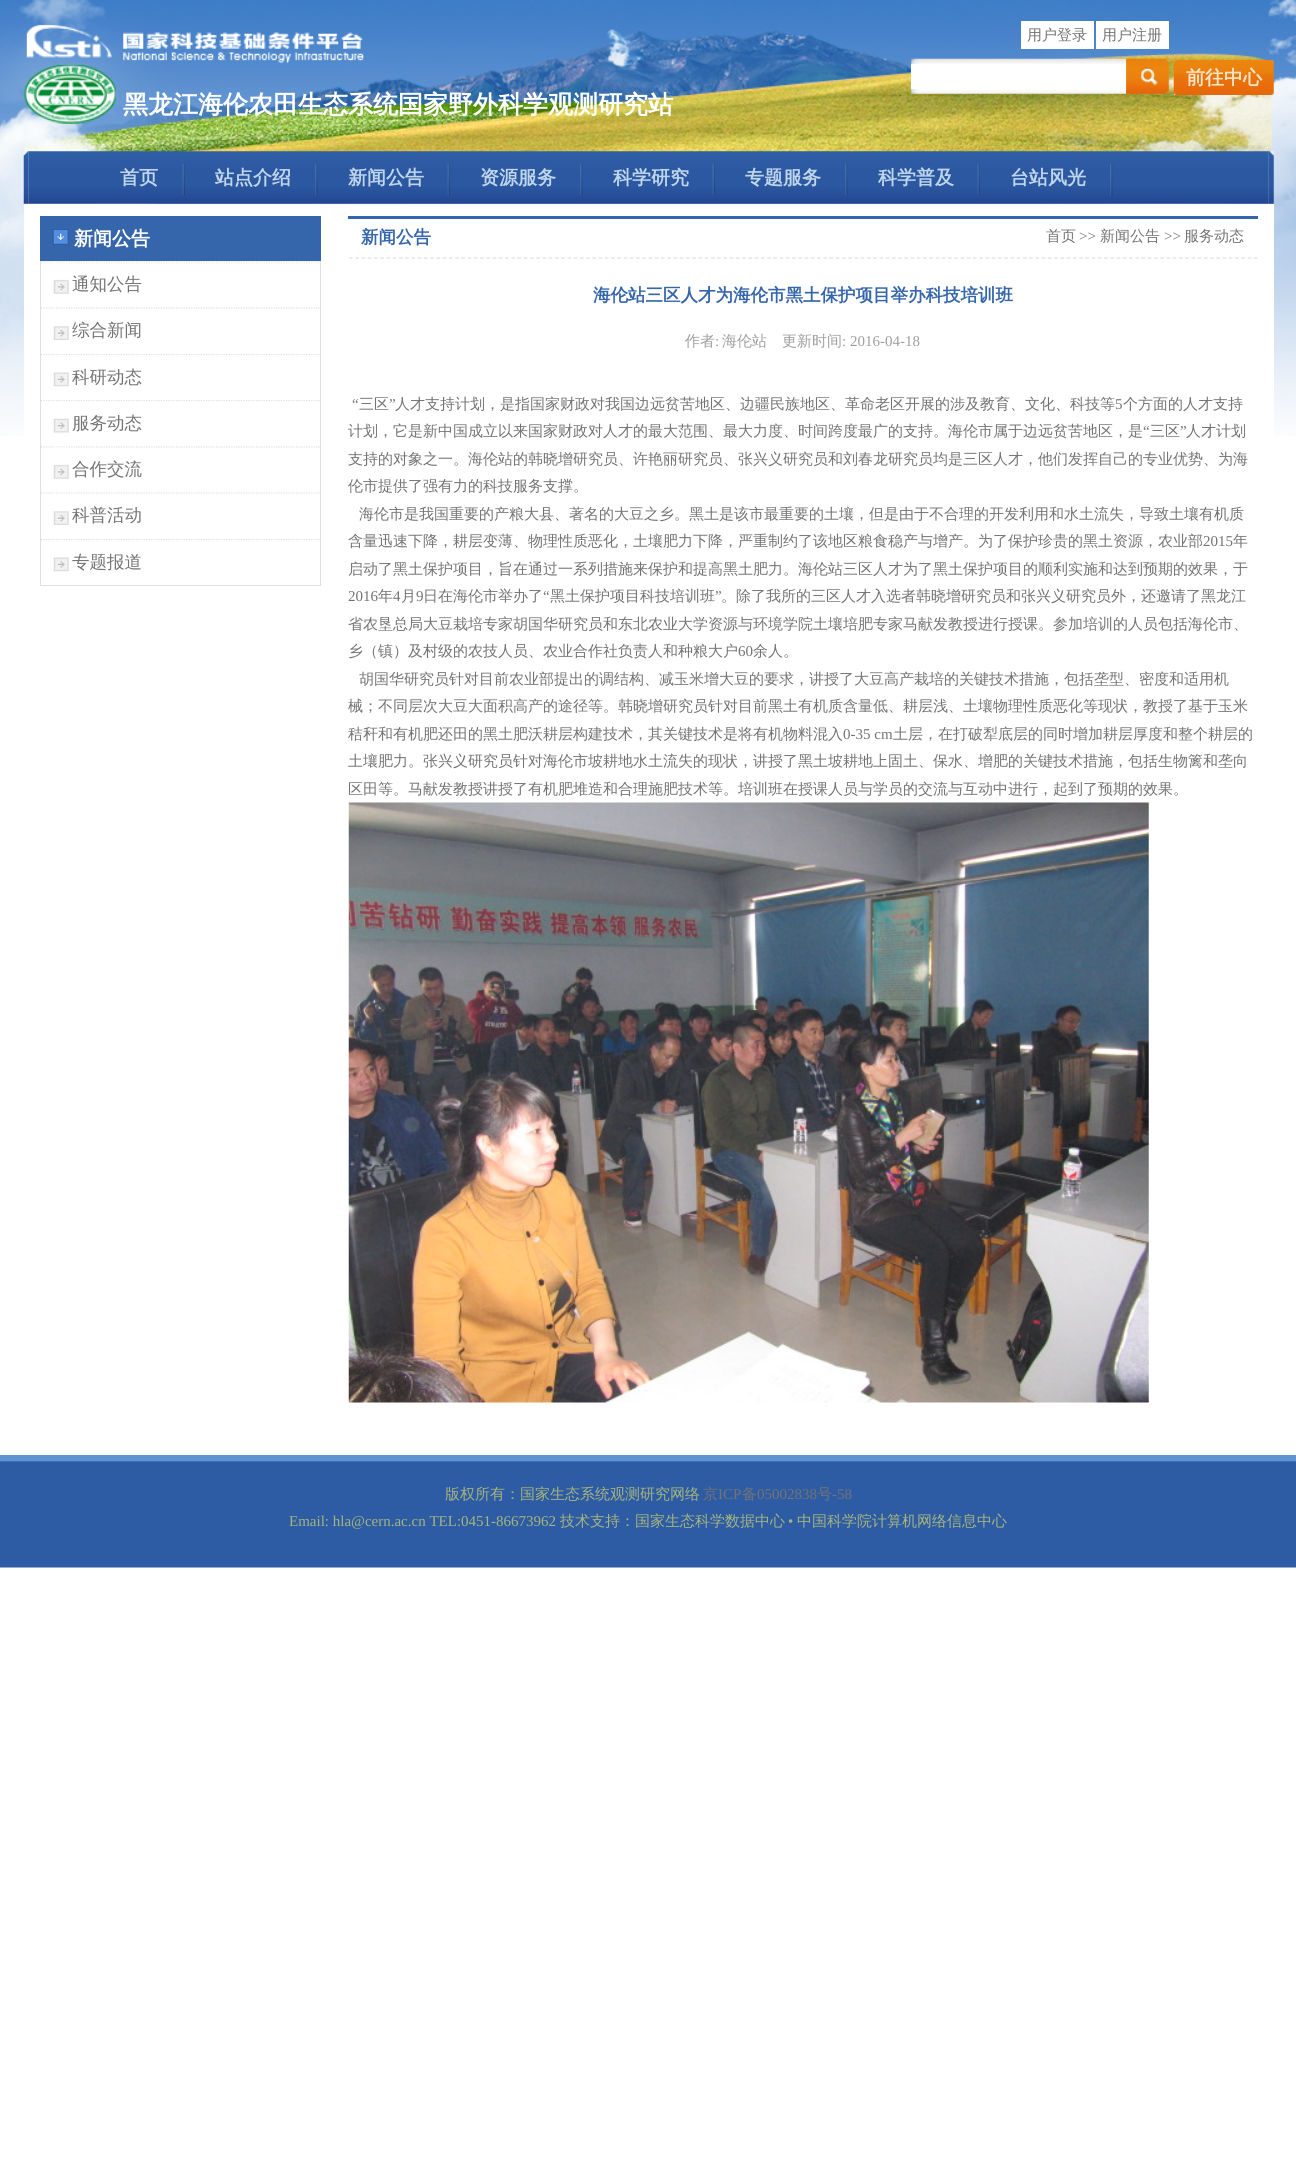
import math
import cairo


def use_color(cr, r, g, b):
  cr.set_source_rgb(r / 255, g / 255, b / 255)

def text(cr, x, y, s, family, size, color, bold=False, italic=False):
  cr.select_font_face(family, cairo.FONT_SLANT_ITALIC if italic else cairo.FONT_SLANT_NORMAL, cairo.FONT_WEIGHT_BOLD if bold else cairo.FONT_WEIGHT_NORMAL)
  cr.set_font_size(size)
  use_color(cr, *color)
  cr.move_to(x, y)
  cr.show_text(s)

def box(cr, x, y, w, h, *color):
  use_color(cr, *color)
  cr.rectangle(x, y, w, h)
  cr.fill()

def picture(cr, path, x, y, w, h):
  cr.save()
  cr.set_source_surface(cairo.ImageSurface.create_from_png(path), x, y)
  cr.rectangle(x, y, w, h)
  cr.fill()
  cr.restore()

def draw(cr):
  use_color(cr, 255, 255, 255)
  cr.paint()
  picture(cr, "img_01.png", 0, 0, 1296, 436)
  box(cr, 1021, 21, 73, 28, 255, 255, 255)
  box(cr, 1096, 21, 73, 28, 255, 255, 255)
  picture(cr, "img_02.png", 911, 58, 216, 36)
  box(cr, 911, 64, 215, 25, 255, 255, 255)
  picture(cr, "img_03.png", 1126, 58, 43, 36)
  picture(cr, "img_04.png", 1173, 60, 101, 35)
  picture(cr, "img_05.png", 23, 151, 6, 53)
  picture(cr, "img_06.png", 28, 151, 1241, 53)
  picture(cr, "img_07.png", 182, 163, 3, 32)
  picture(cr, "img_08.png", 315, 163, 3, 32)
  picture(cr, "img_07.png", 447, 163, 3, 32)
  picture(cr, "img_08.png", 580, 163, 3, 32)
  picture(cr, "img_07.png", 712, 163, 3, 32)
  picture(cr, "img_08.png", 845, 163, 3, 32)
  picture(cr, "img_07.png", 977, 163, 3, 32)
  picture(cr, "img_08.png", 1110, 163, 3, 32)
  picture(cr, "img_09.png", 1268, 151, 6, 53)
  box(cr, 24, 204, 1250, 232, 255, 255, 255)
  box(cr, 40, 216, 281, 45, 53, 102, 172)
  picture(cr, "img_10.png", 52, 229, 17, 16)
  box(cr, 320, 261, 1, 325, 224, 224, 225)
  box(cr, 40, 585, 281, 1, 224, 224, 225)
  box(cr, 40, 261, 1, 325, 224, 224, 225)
  cr.new_path()
  cr.move_to(41, 262)
  cr.line_to(320, 262)
  cr.set_line_width(1.2)
  cr.set_dash([1.25, 1.25])
  cr.stroke()
  picture(cr, "img_11.png", 53, 262, 16, 32)
  cr.new_path()
  cr.move_to(41, 308)
  cr.line_to(320, 308)
  cr.stroke()
  picture(cr, "img_12.png", 53, 308, 16, 32)
  cr.new_path()
  cr.move_to(41, 354.5)
  cr.line_to(320, 354.5)
  cr.stroke()
  picture(cr, "img_13.png", 53, 372, 16, 15)
  cr.new_path()
  cr.move_to(41, 400.5)
  cr.line_to(320, 400.5)
  cr.stroke()
  picture(cr, "img_14.png", 53, 418, 16, 15)
  cr.new_path()
  cr.move_to(41, 447)
  cr.line_to(320, 447)
  cr.stroke()
  picture(cr, "img_11.png", 53, 447, 16, 32)
  cr.new_path()
  cr.move_to(41, 493)
  cr.line_to(320, 493)
  cr.stroke()
  picture(cr, "img_12.png", 53, 493, 16, 32)
  cr.new_path()
  cr.move_to(41, 539.5)
  cr.line_to(320, 539.5)
  cr.stroke()
  picture(cr, "img_13.png", 53, 557, 16, 15)
  box(cr, 348, 216, 910, 3, 53, 102, 172)
  cr.new_path()
  cr.move_to(349, 258)
  cr.line_to(1257.5, 258)
  use_color(cr, 224, 224, 225)
  cr.set_dash([3.75, 2.49])
  cr.stroke()
  picture(cr, "img_15.png", 348, 802, 801, 601)
  picture(cr, "img_16.png", 0, 1455, 1296, 113)
  text(cr, 1027, 40, "用户登录", "WenQuanYi Zen Hei Medium", 15, (115, 115, 115))
  text(cr, 1102, 40, "用户注册", "WenQuanYi Zen Hei Medium", 15, (115, 115, 115))
  text(cr, 1186, 84, "前往中心", "WenQuanYi Zen Hei", 19, (255, 230, 201), bold=True)
  text(cr, 123, 113, "黑龙江海伦农田生态系统国家野外科学观测研究站", "WenQuanYi Zen Hei", 25, (255, 255, 255), bold=True)
  text(cr, 120, 184, "首页", "WenQuanYi Zen Hei", 19, (190, 213, 236), bold=True)
  text(cr, 215, 184, "站点介绍", "WenQuanYi Zen Hei", 19, (190, 213, 236), bold=True)
  text(cr, 348, 184, "新闻公告", "WenQuanYi Zen Hei", 19, (190, 213, 236), bold=True)
  text(cr, 480, 184, "资源服务", "WenQuanYi Zen Hei", 19, (190, 213, 236), bold=True)
  text(cr, 613, 184, "科学研究", "WenQuanYi Zen Hei", 19, (190, 213, 236), bold=True)
  text(cr, 745, 184, "专题服务", "WenQuanYi Zen Hei", 19, (190, 213, 236), bold=True)
  text(cr, 878, 184, "科学普及", "WenQuanYi Zen Hei", 19, (190, 213, 236), bold=True)
  text(cr, 1010, 184, "台站风光", "WenQuanYi Zen Hei", 19, (190, 213, 236), bold=True)
  text(cr, 74, 245, "新闻公告", "WenQuanYi Zen Hei", 19, (255, 255, 255), bold=True)
  text(cr, 72, 290, "通知公告", "WenQuanYi Zen Hei Medium", 17.5, (115, 115, 115))
  text(cr, 72, 336, "综合新闻", "WenQuanYi Zen Hei Medium", 17.5, (115, 115, 115))
  text(cr, 72, 383, "科研动态", "WenQuanYi Zen Hei Medium", 17.5, (115, 115, 115))
  text(cr, 72, 429, "服务动态", "WenQuanYi Zen Hei Medium", 17.5, (115, 115, 115))
  text(cr, 72, 475, "合作交流", "WenQuanYi Zen Hei Medium", 17.5, (115, 115, 115))
  text(cr, 72, 521, "科普活动", "WenQuanYi Zen Hei Medium", 17.5, (115, 115, 115))
  text(cr, 72, 568, "专题报道", "WenQuanYi Zen Hei Medium", 17.5, (115, 115, 115))
  text(cr, 361, 243, "新闻公告", "WenQuanYi Zen Hei", 17.5, (53, 102, 172), bold=True)
  text(cr, 1046, 241, "首页", "WenQuanYi Zen Hei Medium", 15, (115, 115, 115))
  text(cr, 1079, 241, ">>", "Liberation Serif", 15, (115, 115, 115))
  text(cr, 1100, 241, "新闻公告", "WenQuanYi Zen Hei Medium", 15, (115, 115, 115))
  text(cr, 1164, 241, ">>", "Liberation Serif", 15, (115, 115, 115))
  text(cr, 1184, 241, "服务动态", "WenQuanYi Zen Hei Medium", 15, (115, 115, 115))
  text(cr, 593, 301, "海伦站三区人才为海伦市黑土保护项目举办科技培训班", "WenQuanYi Zen Hei", 17.5, (53, 102, 172), bold=True)
  text(cr, 685, 346, "作者", "WenQuanYi Zen Hei Medium", 15, (159, 159, 159))
  text(cr, 715, 346, ":", "Liberation Serif", 15, (159, 159, 159))
  text(cr, 722, 346, "海伦站　更新时间", "WenQuanYi Zen Hei Medium", 15, (159, 159, 159))
  text(cr, 842, 346, ": 2016-04-18", "Liberation Serif", 15, (159, 159, 159))
  text(cr, 352, 409, "“", "Liberation Serif", 15, (115, 115, 115))
  text(cr, 359, 409, "三区", "WenQuanYi Zen Hei Medium", 15, (115, 115, 115))
  text(cr, 389, 409, "”", "Liberation Serif", 15, (115, 115, 115))
  text(cr, 395, 409, "人才支持计划，是指国家财政对我国边远贫苦地区、边疆民族地区、革命老区开展的涉及教育、文化、科技等", "WenQuanYi Zen Hei Medium", 15, (115, 115, 115))
  text(cr, 1115, 409, "5", "Liberation Serif", 15, (115, 115, 115))
  text(cr, 1123, 409, "个方面的人才支持", "WenQuanYi Zen Hei Medium", 15, (115, 115, 115))
  text(cr, 348, 436, "计划，它是新中国成立以来国家财政对人才的最大范围、最大力度、时间跨度最广的支持。海伦市属于边远贫苦地区，是", "WenQuanYi Zen Hei Medium", 15, (115, 115, 115))
  text(cr, 1143, 436, "“", "Liberation Serif", 15, (115, 115, 115))
  text(cr, 1150, 436, "三区", "WenQuanYi Zen Hei Medium", 15, (115, 115, 115))
  text(cr, 1180, 436, "”", "Liberation Serif", 15, (115, 115, 115))
  text(cr, 1186, 436, "人才计划", "WenQuanYi Zen Hei Medium", 15, (115, 115, 115))
  text(cr, 348, 464, "支持的对象之一。海伦站的韩晓增研究员、许艳丽研究员、张兴义研究员和刘春龙研究员均是三区人才，他们发挥自己的专业优势、为海", "WenQuanYi Zen Hei Medium", 15, (115, 115, 115))
  text(cr, 348, 491, "伦市提供了强有力的科技服务支撑。", "WenQuanYi Zen Hei Medium", 15, (115, 115, 115))
  text(cr, 359, 519, "海伦市是我国重要的产粮大县、著名的大豆之乡。黑土是该市最重要的土壤，但是由于不合理的开发利用和水土流失，导致土壤有机质", "WenQuanYi Zen Hei Medium", 15, (115, 115, 115))
  text(cr, 348, 546, "含量迅速下降，耕层变薄、物理性质恶化，土壤肥力下降，严重制约了该地区粮食稳产与增产。为了保护珍贵的黑土资源，农业部", "WenQuanYi Zen Hei Medium", 15, (115, 115, 115))
  text(cr, 1203, 546, "2015", "Liberation Serif", 15, (115, 115, 115))
  text(cr, 1233, 546, "年", "WenQuanYi Zen Hei Medium", 15, (115, 115, 115))
  text(cr, 348, 574, "启动了黑土保护项目，旨在通过一系列措施来保护和提高黑土肥力。海伦站三区人才为了黑土保护项目的顺利实施和达到预期的效果，于", "WenQuanYi Zen Hei Medium", 15, (115, 115, 115))
  text(cr, 348, 601, "2016", "Liberation Serif", 15, (115, 115, 115))
  text(cr, 378, 601, "年", "WenQuanYi Zen Hei Medium", 15, (115, 115, 115))
  text(cr, 393, 601, "4", "Liberation Serif", 15, (115, 115, 115))
  text(cr, 401, 601, "月", "WenQuanYi Zen Hei Medium", 15, (115, 115, 115))
  text(cr, 416, 601, "9", "Liberation Serif", 15, (115, 115, 115))
  text(cr, 423, 601, "日在海伦市举办了", "WenQuanYi Zen Hei Medium", 15, (115, 115, 115))
  text(cr, 543, 601, "“", "Liberation Serif", 15, (115, 115, 115))
  text(cr, 550, 601, "黑土保护项目科技培训班", "WenQuanYi Zen Hei Medium", 15, (115, 115, 115))
  text(cr, 715, 601, "”", "Liberation Serif", 15, (115, 115, 115))
  text(cr, 721, 601, "。除了我所的三区人才入选者韩晓增研究员和张兴义研究员外，还邀请了黑龙江", "WenQuanYi Zen Hei Medium", 15, (115, 115, 115))
  text(cr, 348, 629, "省农垦总局大豆栽培专家胡国华研究员和东北农业大学资源与环境学院土壤培肥专家马献发教授进行授课。参加培训的人员包括海伦市、", "WenQuanYi Zen Hei Medium", 15, (115, 115, 115))
  text(cr, 348, 656, "乡（镇）及村级的农技人员、农业合作社负责人和种粮大户", "WenQuanYi Zen Hei Medium", 15, (115, 115, 115))
  text(cr, 738, 656, "60", "Liberation Serif", 15, (115, 115, 115))
  text(cr, 753, 656, "余人。", "WenQuanYi Zen Hei Medium", 15, (115, 115, 115))
  text(cr, 359, 684, "胡国华研究员针对目前农业部提出的调结构、减玉米增大豆的要求，讲授了大豆高产栽培的关键技术措施，包括垄型、密度和适用机", "WenQuanYi Zen Hei Medium", 15, (115, 115, 115))
  text(cr, 348, 711, "械；不同层次大豆大面积高产的途径等。韩晓增研究员针对目前黑土有机质含量低、耕层浅、土壤物理性质恶化等现状，教授了基于玉米", "WenQuanYi Zen Hei Medium", 15, (115, 115, 115))
  text(cr, 348, 739, "秸秆和有机肥还田的黑土肥沃耕层构建技术，其关键技术是将有机物料混入", "WenQuanYi Zen Hei Medium", 15, (115, 115, 115))
  text(cr, 843, 739, "0-35 cm", "Liberation Serif", 15, (115, 115, 115))
  text(cr, 893, 739, "土层，在打破犁底层的同时增加耕层厚度和整个耕层的", "WenQuanYi Zen Hei Medium", 15, (115, 115, 115))
  text(cr, 348, 766, "土壤肥力。张兴义研究员针对海伦市坡耕地水土流失的现状，讲授了黑土坡耕地上固土、保水、增肥的关键技术措施，包括生物篱和垄向", "WenQuanYi Zen Hei Medium", 15, (115, 115, 115))
  text(cr, 348, 794, "区田等。马献发教授讲授了有机肥堆造和合理施肥技术等。培训班在授课人员与学员的交流与互动中进行，起到了预期的效果。", "WenQuanYi Zen Hei Medium", 15, (115, 115, 115))
  text(cr, 445, 1499, "版权所有：国家生态系统观测研究网络", "WenQuanYi Zen Hei Medium", 15, (165, 180, 125))
  text(cr, 703, 1499, "京", "WenQuanYi Zen Hei Medium", 15, (115, 115, 115))
  text(cr, 718, 1499, "ICP", "Liberation Serif", 15, (115, 115, 115))
  text(cr, 742, 1499, "备", "WenQuanYi Zen Hei Medium", 15, (115, 115, 115))
  text(cr, 757, 1499, "05002838", "Liberation Serif", 15, (115, 115, 115))
  text(cr, 817, 1499, "号", "WenQuanYi Zen Hei Medium", 15, (115, 115, 115))
  text(cr, 832, 1499, "-58", "Liberation Serif", 15, (115, 115, 115))
  text(cr, 289, 1526, "Email: hla@cern.ac.cn TEL:0451-86673962", "Liberation Serif", 15, (165, 180, 125))
  text(cr, 560, 1526, "技术支持：国家生态科学数据中心", "WenQuanYi Zen Hei Medium", 15, (165, 180, 125))
  text(cr, 788, 1526, "•", "Liberation Serif", 15, (165, 180, 125))
  text(cr, 797, 1526, "中国科学院计算机网络信息中心", "WenQuanYi Zen Hei Medium", 15, (165, 180, 125))


surface = cairo.ImageSurface(cairo.FORMAT_RGB24, 1296, 2164)
cr = cairo.Context(surface)
options = cairo.FontOptions()
options.set_hint_metrics(cairo.HINT_METRICS_OFF)
options.set_hint_style(cairo.HINT_STYLE_NONE)
cr.set_font_options(options)
cr.set_miter_limit(4)
draw(cr)
surface.write_to_png("out.png")
